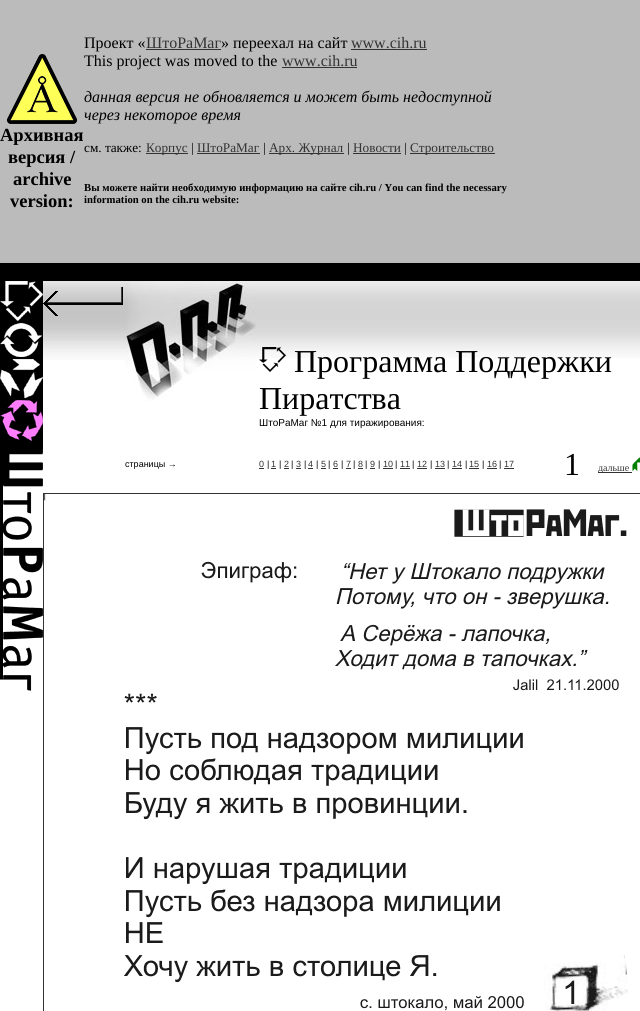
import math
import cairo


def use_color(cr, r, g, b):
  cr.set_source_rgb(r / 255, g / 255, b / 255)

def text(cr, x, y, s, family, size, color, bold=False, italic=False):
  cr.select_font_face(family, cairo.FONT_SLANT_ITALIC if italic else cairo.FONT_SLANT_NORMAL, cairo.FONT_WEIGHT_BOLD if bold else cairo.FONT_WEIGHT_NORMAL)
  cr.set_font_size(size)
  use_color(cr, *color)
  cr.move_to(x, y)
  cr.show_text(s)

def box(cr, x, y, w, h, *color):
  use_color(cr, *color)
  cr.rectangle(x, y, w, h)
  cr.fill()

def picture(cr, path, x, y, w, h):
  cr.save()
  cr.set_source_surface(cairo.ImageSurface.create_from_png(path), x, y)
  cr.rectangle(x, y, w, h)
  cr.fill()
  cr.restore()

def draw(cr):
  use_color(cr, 255, 255, 255)
  cr.paint()
  box(cr, 0, 0, 640, 263, 187, 187, 187)
  picture(cr, "img_01.png", 7, 54, 70, 70)
  box(cr, 146, 49, 75, 1, 51, 51, 51)
  box(cr, 351, 49, 76, 1, 51, 51, 51)
  box(cr, 282, 67, 75, 1, 51, 51, 51)
  box(cr, 146, 153, 42, 1, 51, 51, 51)
  box(cr, 197, 153, 63, 1, 51, 51, 51)
  box(cr, 269, 153, 75, 1, 51, 51, 51)
  box(cr, 353, 153, 48, 1, 51, 51, 51)
  box(cr, 410, 153, 85, 1, 51, 51, 51)
  box(cr, 0, 263, 640, 18, 0, 0, 0)
  box(cr, 0, 441, 43, 5, 0, 0, 0)
  picture(cr, "img_02.png", 0, 281, 43, 160)
  picture(cr, "img_03.png", 43, 281, 82, 79)
  picture(cr, "img_04.png", 43, 287, 80, 29)
  picture(cr, "img_05.png", 256, 281, 3, 77)
  picture(cr, "img_06.png", 125, 281, 131, 120)
  picture(cr, "img_07.png", 259, 281, 381, 77)
  picture(cr, "img_08.png", 259, 347, 27, 25)
  picture(cr, "img_09.png", 0, 446, 43, 245)
  box(cr, 259, 468, 5, 1, 51, 51, 51)
  box(cr, 271, 468, 5, 1, 51, 51, 51)
  box(cr, 284, 468, 5, 1, 51, 51, 51)
  box(cr, 296, 468, 5, 1, 51, 51, 51)
  box(cr, 308, 468, 5, 1, 51, 51, 51)
  box(cr, 321, 468, 5, 1, 51, 51, 51)
  box(cr, 333, 468, 5, 1, 51, 51, 51)
  box(cr, 346, 468, 5, 1, 51, 51, 51)
  box(cr, 358, 468, 5, 1, 51, 51, 51)
  box(cr, 370, 468, 5, 1, 51, 51, 51)
  box(cr, 383, 468, 10, 1, 51, 51, 51)
  box(cr, 400, 468, 10, 1, 51, 51, 51)
  box(cr, 417, 468, 10, 1, 51, 51, 51)
  box(cr, 435, 468, 10, 1, 51, 51, 51)
  box(cr, 452, 468, 10, 1, 51, 51, 51)
  box(cr, 469, 468, 10, 1, 51, 51, 51)
  box(cr, 487, 468, 10, 1, 51, 51, 51)
  box(cr, 504, 468, 10, 1, 51, 51, 51)
  box(cr, 598, 472, 34, 1, 51, 51, 51)
  picture(cr, "img_10.png", 632, 457, 8, 14)
  cr.rectangle(43.5, 493.5, 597, 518)
  cr.set_line_width(1)
  cr.stroke()
  picture(cr, "img_11.png", 44, 494, 584, 517)
  text(cr, 0, 141, "Архивная", "Liberation Serif", 18.5, (0, 0, 0), bold=True)
  text(cr, 8, 163, "версия /", "Liberation Serif", 18.5, (0, 0, 0), bold=True)
  text(cr, 13, 185, "archive", "Liberation Serif", 18.5, (0, 0, 0), bold=True)
  text(cr, 10, 207, "version:", "Liberation Serif", 18.5, (0, 0, 0), bold=True)
  text(cr, 84, 48, "Проект «", "Liberation Serif", 16, (0, 0, 0))
  text(cr, 146, 48, "ШтоРаМаг", "Liberation Serif", 16, (51, 51, 51))
  text(cr, 221, 48, "» переехал на сайт", "Liberation Serif", 16, (0, 0, 0))
  text(cr, 351, 48, "www.cih.ru", "Liberation Serif", 16, (51, 51, 51))
  text(cr, 84, 66, "This project was moved to the", "Liberation Serif", 16, (0, 0, 0))
  text(cr, 282, 66, "www.cih.ru", "Liberation Serif", 16, (51, 51, 51))
  text(cr, 84, 102, "данная версия не обновляется и может быть недоступной", "Liberation Serif", 16, (0, 0, 0), italic=True)
  text(cr, 84, 120, "через некоторое время", "Liberation Serif", 16, (0, 0, 0), italic=True)
  text(cr, 84, 152, "см. также:", "Liberation Serif", 13.25, (0, 0, 0))
  text(cr, 146, 152, "Корпус", "Liberation Serif", 13.25, (51, 51, 51))
  text(cr, 191, 152, "|", "Liberation Serif", 13.25, (0, 0, 0))
  text(cr, 197, 152, "ШтоРаМаг", "Liberation Serif", 13.25, (51, 51, 51))
  text(cr, 263, 152, "|", "Liberation Serif", 13.25, (0, 0, 0))
  text(cr, 269, 152, "Арх. Журнал", "Liberation Serif", 13.25, (51, 51, 51))
  text(cr, 347, 152, "|", "Liberation Serif", 13.25, (0, 0, 0))
  text(cr, 353, 152, "Новости", "Liberation Serif", 13.25, (51, 51, 51))
  text(cr, 404, 152, "|", "Liberation Serif", 13.25, (0, 0, 0))
  text(cr, 410, 152, "Строительство", "Liberation Serif", 13.25, (51, 51, 51))
  text(cr, 84, 191, "Вы можете найти необходимую информацию на сайте cih.ru / You can find the necessary", "Liberation Serif", 10.7, (0, 0, 0), bold=True)
  text(cr, 84, 203, "information on the cih.ru website:", "Liberation Serif", 10.7, (0, 0, 0), bold=True)
  text(cr, 294, 372, "Программа Поддержки", "Liberation Serif", 32, (0, 0, 0))
  text(cr, 259, 409, "Пиратства", "Liberation Serif", 32, (0, 0, 0))
  text(cr, 259, 426, "ШтоРаМаг №1 для тиражирования:", "Liberation Sans", 10, (0, 0, 0))
  text(cr, 125, 467, "страницы →", "Liberation Sans", 9, (0, 0, 0))
  text(cr, 259, 467, "0", "Liberation Sans", 9, (51, 51, 51))
  text(cr, 267, 467, "|", "Liberation Sans", 9, (0, 0, 0))
  text(cr, 271, 467, "1", "Liberation Sans", 9, (51, 51, 51))
  text(cr, 279, 467, "|", "Liberation Sans", 9, (0, 0, 0))
  text(cr, 284, 467, "2", "Liberation Sans", 9, (51, 51, 51))
  text(cr, 291, 467, "|", "Liberation Sans", 9, (0, 0, 0))
  text(cr, 296, 467, "3", "Liberation Sans", 9, (51, 51, 51))
  text(cr, 304, 467, "|", "Liberation Sans", 9, (0, 0, 0))
  text(cr, 308, 467, "4", "Liberation Sans", 9, (51, 51, 51))
  text(cr, 316, 467, "|", "Liberation Sans", 9, (0, 0, 0))
  text(cr, 321, 467, "5", "Liberation Sans", 9, (51, 51, 51))
  text(cr, 328, 467, "|", "Liberation Sans", 9, (0, 0, 0))
  text(cr, 333, 467, "6", "Liberation Sans", 9, (51, 51, 51))
  text(cr, 341, 467, "|", "Liberation Sans", 9, (0, 0, 0))
  text(cr, 346, 467, "7", "Liberation Sans", 9, (51, 51, 51))
  text(cr, 353, 467, "|", "Liberation Sans", 9, (0, 0, 0))
  text(cr, 358, 467, "8", "Liberation Sans", 9, (51, 51, 51))
  text(cr, 365, 467, "|", "Liberation Sans", 9, (0, 0, 0))
  text(cr, 370, 467, "9", "Liberation Sans", 9, (51, 51, 51))
  text(cr, 378, 467, "|", "Liberation Sans", 9, (0, 0, 0))
  text(cr, 383, 467, "10", "Liberation Sans", 9, (51, 51, 51))
  text(cr, 395, 467, "|", "Liberation Sans", 9, (0, 0, 0))
  text(cr, 400, 467, "11", "Liberation Sans", 9, (51, 51, 51))
  text(cr, 412, 467, "|", "Liberation Sans", 9, (0, 0, 0))
  text(cr, 417, 467, "12", "Liberation Sans", 9, (51, 51, 51))
  text(cr, 430, 467, "|", "Liberation Sans", 9, (0, 0, 0))
  text(cr, 435, 467, "13", "Liberation Sans", 9, (51, 51, 51))
  text(cr, 447, 467, "|", "Liberation Sans", 9, (0, 0, 0))
  text(cr, 452, 467, "14", "Liberation Sans", 9, (51, 51, 51))
  text(cr, 465, 467, "|", "Liberation Sans", 9, (0, 0, 0))
  text(cr, 469, 467, "15", "Liberation Sans", 9, (51, 51, 51))
  text(cr, 482, 467, "|", "Liberation Sans", 9, (0, 0, 0))
  text(cr, 487, 467, "16", "Liberation Sans", 9, (51, 51, 51))
  text(cr, 499, 467, "|", "Liberation Sans", 9, (0, 0, 0))
  text(cr, 504, 467, "17", "Liberation Sans", 9, (51, 51, 51))
  text(cr, 564, 475, "1", "Liberation Serif", 32, (0, 0, 0))
  text(cr, 598, 471, "дальше", "Liberation Serif", 10, (51, 51, 51))


surface = cairo.ImageSurface(cairo.FORMAT_RGB24, 640, 1011)
cr = cairo.Context(surface)
options = cairo.FontOptions()
options.set_hint_metrics(cairo.HINT_METRICS_OFF)
options.set_hint_style(cairo.HINT_STYLE_NONE)
cr.set_font_options(options)
cr.set_miter_limit(4)
draw(cr)
surface.write_to_png("out.png")
